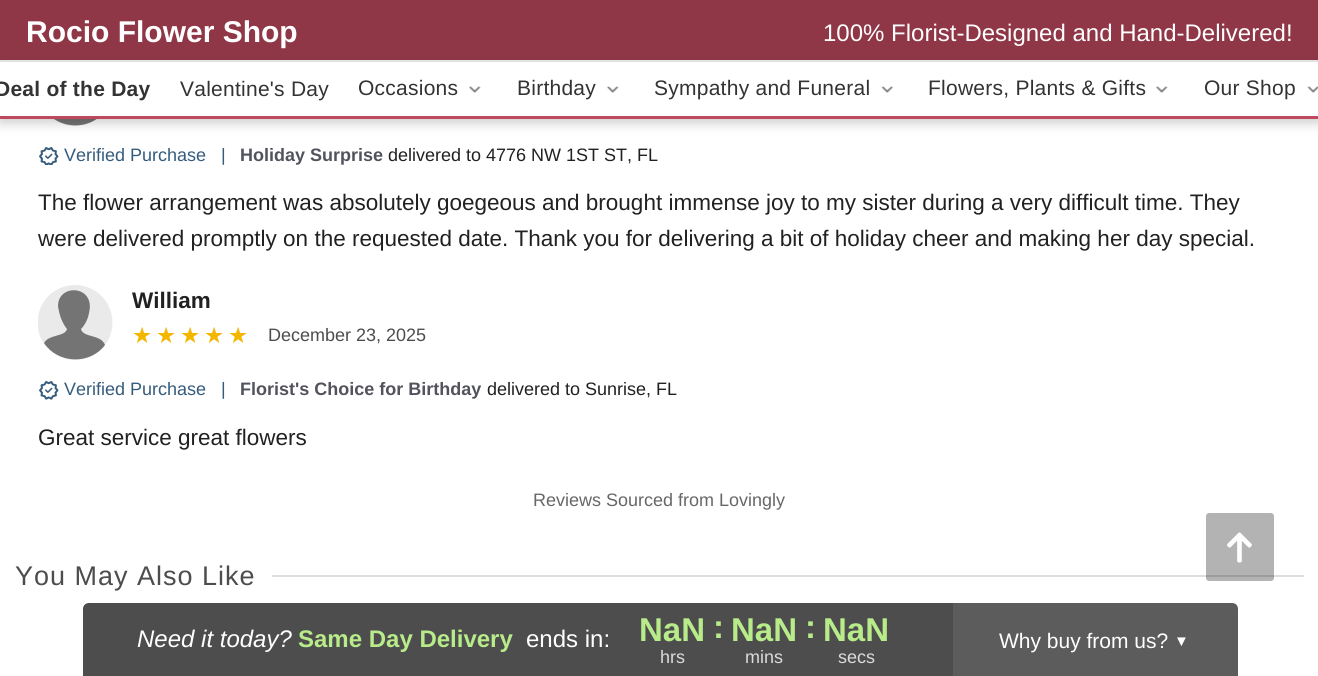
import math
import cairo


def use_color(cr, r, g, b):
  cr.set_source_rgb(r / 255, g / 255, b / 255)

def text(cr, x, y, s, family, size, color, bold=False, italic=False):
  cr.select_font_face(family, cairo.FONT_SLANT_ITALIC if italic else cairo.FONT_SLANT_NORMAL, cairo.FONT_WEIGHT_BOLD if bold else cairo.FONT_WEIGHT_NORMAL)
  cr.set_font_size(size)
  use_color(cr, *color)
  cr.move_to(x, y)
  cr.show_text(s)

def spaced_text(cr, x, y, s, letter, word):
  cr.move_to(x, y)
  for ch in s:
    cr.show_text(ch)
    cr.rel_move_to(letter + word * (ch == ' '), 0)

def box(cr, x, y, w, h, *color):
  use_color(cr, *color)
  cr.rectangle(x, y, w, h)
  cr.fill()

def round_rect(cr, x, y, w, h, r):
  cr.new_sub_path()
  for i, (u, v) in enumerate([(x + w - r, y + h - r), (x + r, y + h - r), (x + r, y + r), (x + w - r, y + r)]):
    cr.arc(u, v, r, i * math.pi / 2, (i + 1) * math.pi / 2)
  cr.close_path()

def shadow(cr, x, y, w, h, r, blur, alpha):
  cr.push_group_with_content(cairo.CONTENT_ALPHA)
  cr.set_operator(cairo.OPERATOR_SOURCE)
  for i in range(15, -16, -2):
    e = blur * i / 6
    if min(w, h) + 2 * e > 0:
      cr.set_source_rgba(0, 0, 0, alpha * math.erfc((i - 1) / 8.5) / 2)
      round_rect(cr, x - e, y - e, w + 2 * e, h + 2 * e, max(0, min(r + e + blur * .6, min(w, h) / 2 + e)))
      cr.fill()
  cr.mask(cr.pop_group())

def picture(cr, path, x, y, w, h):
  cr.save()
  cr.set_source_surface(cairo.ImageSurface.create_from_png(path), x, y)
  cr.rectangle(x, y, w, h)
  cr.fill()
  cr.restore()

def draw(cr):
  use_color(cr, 255, 255, 255)
  cr.paint()
  use_color(cr, 234, 234, 234)
  cr.arc(75, 88.5, 37.5, 0, 2 * math.pi)
  cr.fill()
  use_color(cr, 116, 116, 116)
  cr.new_path()
  cr.move_to(105, 111)
  cr.curve_to(90, 131, 58, 130, 44, 109)
  cr.curve_to(49, 100, 65, 103, 67, 95)
  cr.curve_to(62, 89, 59, 80, 58, 72)
  cr.curve_to(58, 49, 96, 51, 89, 79)
  cr.curve_to(88, 85, 85, 91, 81, 95)
  cr.curve_to(83, 104, 101, 100, 105, 111)
  cr.close_path()
  cr.fill()
  box(cr, 0, 0, 1318, 60, 143, 55, 71)
  box(cr, 0, 60, 1318, 2, 234, 234, 234)
  use_color(cr, 0, 0, 0)
  shadow(cr, 0, 66, 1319, 57, 0, 6, 0.2)
  box(cr, 0, 62, 1318, 54, 255, 255, 255)
  box(cr, 0, 116, 1318, 3, 190, 73, 95)
  picture(cr, "img_01.png", 469, 86, 12, 7)
  picture(cr, "img_01.png", 607, 86, 12, 7)
  picture(cr, "img_02.png", 881, 86, 12, 7)
  picture(cr, "img_01.png", 1156, 86, 12, 7)
  picture(cr, "img_03.png", 1307, 86, 11, 7)
  picture(cr, "img_04.png", 39, 147, 20, 18)
  cr.save()
  cr.rectangle(38, 285, 75, 75)
  cr.clip()
  use_color(cr, 234, 234, 234)
  cr.arc(75, 322.5, 37.5, 0, 2 * math.pi)
  cr.fill()
  cr.restore()
  use_color(cr, 116, 116, 116)
  cr.new_path()
  cr.move_to(105, 345)
  cr.curve_to(90, 365, 58, 364, 44, 343)
  cr.curve_to(49, 334, 65, 337, 67, 329)
  cr.curve_to(62, 323, 59, 314, 58, 306)
  cr.curve_to(58, 283, 96, 285, 89, 313)
  cr.curve_to(88, 319, 85, 325, 81, 329)
  cr.curve_to(83, 338, 101, 334, 105, 345)
  cr.close_path()
  cr.fill()
  picture(cr, "img_05.png", 39, 381, 20, 19)
  box(cr, 272, 575, 1032, 2, 222, 222, 222)
  picture(cr, "img_06.png", 1206, 513, 68, 68)
  use_color(cr, 77, 77, 77)
  cr.new_path()
  cr.move_to(89, 603)
  cr.line_to(953, 603)
  cr.line_to(953, 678)
  cr.line_to(83, 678)
  cr.line_to(83, 609)
  cr.curve_to(83, 605.5, 85.5, 603, 89, 603)
  cr.close_path()
  cr.fill()
  use_color(cr, 92, 92, 92)
  cr.new_path()
  cr.move_to(953, 603)
  cr.line_to(1232, 603)
  cr.curve_to(1235.5, 603, 1238, 605.5, 1238, 609)
  cr.line_to(1238, 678)
  cr.line_to(953, 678)
  cr.close_path()
  cr.fill()
  text(cr, 26, 42, "Rocio Flower Shop", "Liberation Sans", 30, (255, 255, 255), bold=True)
  text(cr, 823, 41, "100% Florist-Designed and Hand-Delivered!", "Liberation Sans", 24, (255, 255, 255))
  cr.select_font_face("Liberation Sans", cairo.FONT_SLANT_NORMAL, cairo.FONT_WEIGHT_BOLD)
  cr.set_font_size(21)
  use_color(cr, 51, 51, 51)
  spaced_text(cr, -5, 96, "Deal of the Day", 0.25, 0)
  cr.select_font_face("Liberation Sans")
  spaced_text(cr, 180, 96, "Valentine's Day", 0.25, 0)
  spaced_text(cr, 358, 95, "Occasions", 0.25, 0)
  spaced_text(cr, 517, 95, "Birthday", 0.25, 0)
  spaced_text(cr, 654, 95, "Sympathy and Funeral", 0.25, 0)
  spaced_text(cr, 928, 95, "Flowers, Plants & Gifts", 0.25, 0)
  spaced_text(cr, 1204, 95, "Our Shop", 0.25, 0)
  text(cr, 64, 161, "Verified Purchase", "Liberation Sans", 18, (53, 92, 125))
  text(cr, 221, 161, "|", "Liberation Sans", 18, (53, 92, 125))
  text(cr, 240, 161, "Holiday Surprise", "Liberation Sans", 18, (83, 83, 94), bold=True)
  text(cr, 388, 161, "delivered to 4776 NW 1ST ST, FL", "Liberation Sans", 18, (33, 33, 33))
  text(cr, 38, 210, "The flower arrangement was absolutely goegeous and brought immense joy to my sister during a very difficult time. They", "Liberation Sans", 22.5, (33, 33, 33))
  text(cr, 38, 246, "were delivered promptly on the requested date. Thank you for delivering a bit of holiday cheer and making her day special.", "Liberation Sans", 22.5, (33, 33, 33))
  text(cr, 132, 308, "William", "Liberation Sans", 22.5, (33, 33, 33), bold=True)
  text(cr, 132, 343, "★", "DejaVu Sans", 22.5, (244, 183, 0))
  text(cr, 156, 343, "★", "DejaVu Sans", 22.5, (244, 183, 0))
  text(cr, 180, 343, "★", "DejaVu Sans", 22.5, (244, 183, 0))
  text(cr, 204, 343, "★", "DejaVu Sans", 22.5, (244, 183, 0))
  text(cr, 228, 343, "★", "DejaVu Sans", 22.5, (244, 183, 0))
  text(cr, 268, 341, "December 23, 2025", "Liberation Sans", 18, (77, 77, 77))
  text(cr, 64, 395, "Verified Purchase", "Liberation Sans", 18, (53, 92, 125))
  text(cr, 221, 395, "|", "Liberation Sans", 18, (53, 92, 125))
  text(cr, 240, 395, "Florist's Choice for Birthday", "Liberation Sans", 18, (83, 83, 94), bold=True)
  text(cr, 487, 395, "delivered to Sunrise, FL", "Liberation Sans", 18, (33, 33, 33))
  text(cr, 38, 445, "Great service great flowers", "Liberation Sans", 22.5, (33, 33, 33))
  text(cr, 533, 506, "Reviews Sourced from Lovingly", "Liberation Sans", 18, (103, 103, 103))
  cr.set_font_size(27)
  use_color(cr, 77, 77, 77)
  spaced_text(cr, 15, 585, "You May Also Like", 1, 0)
  text(cr, 137, 647, "Need it today?", "Liberation Sans", 24, (255, 255, 255), italic=True)
  text(cr, 298, 647, "Same Day Delivery", "Liberation Sans", 24, (184, 235, 137), bold=True)
  text(cr, 526, 647, "ends in:", "Liberation Sans", 24, (255, 255, 255))
  text(cr, 639, 641, "NaN", "Liberation Sans", 33, (184, 235, 137), bold=True)
  text(cr, 660, 663, "hrs", "Liberation Sans", 18, (219, 219, 219))
  text(cr, 713, 638, ":", "Liberation Sans", 33, (184, 235, 137), bold=True)
  text(cr, 731, 641, "NaN", "Liberation Sans", 33, (184, 235, 137), bold=True)
  text(cr, 745, 663, "mins", "Liberation Sans", 18, (219, 219, 219))
  text(cr, 805, 638, ":", "Liberation Sans", 33, (184, 235, 137), bold=True)
  text(cr, 823, 641, "NaN", "Liberation Sans", 33, (184, 235, 137), bold=True)
  text(cr, 838, 663, "secs", "Liberation Sans", 18, (219, 219, 219))
  text(cr, 999, 648, "Why buy from us?", "Liberation Sans", 21, (255, 255, 255))
  text(cr, 1174, 646, "▼", "Liberation Sans", 15, (255, 255, 255))


surface = cairo.ImageSurface(cairo.FORMAT_RGB24, 1318, 676)
cr = cairo.Context(surface)
options = cairo.FontOptions()
options.set_hint_metrics(cairo.HINT_METRICS_OFF)
options.set_hint_style(cairo.HINT_STYLE_NONE)
cr.set_font_options(options)
cr.set_miter_limit(4)
draw(cr)
surface.write_to_png("out.png")
